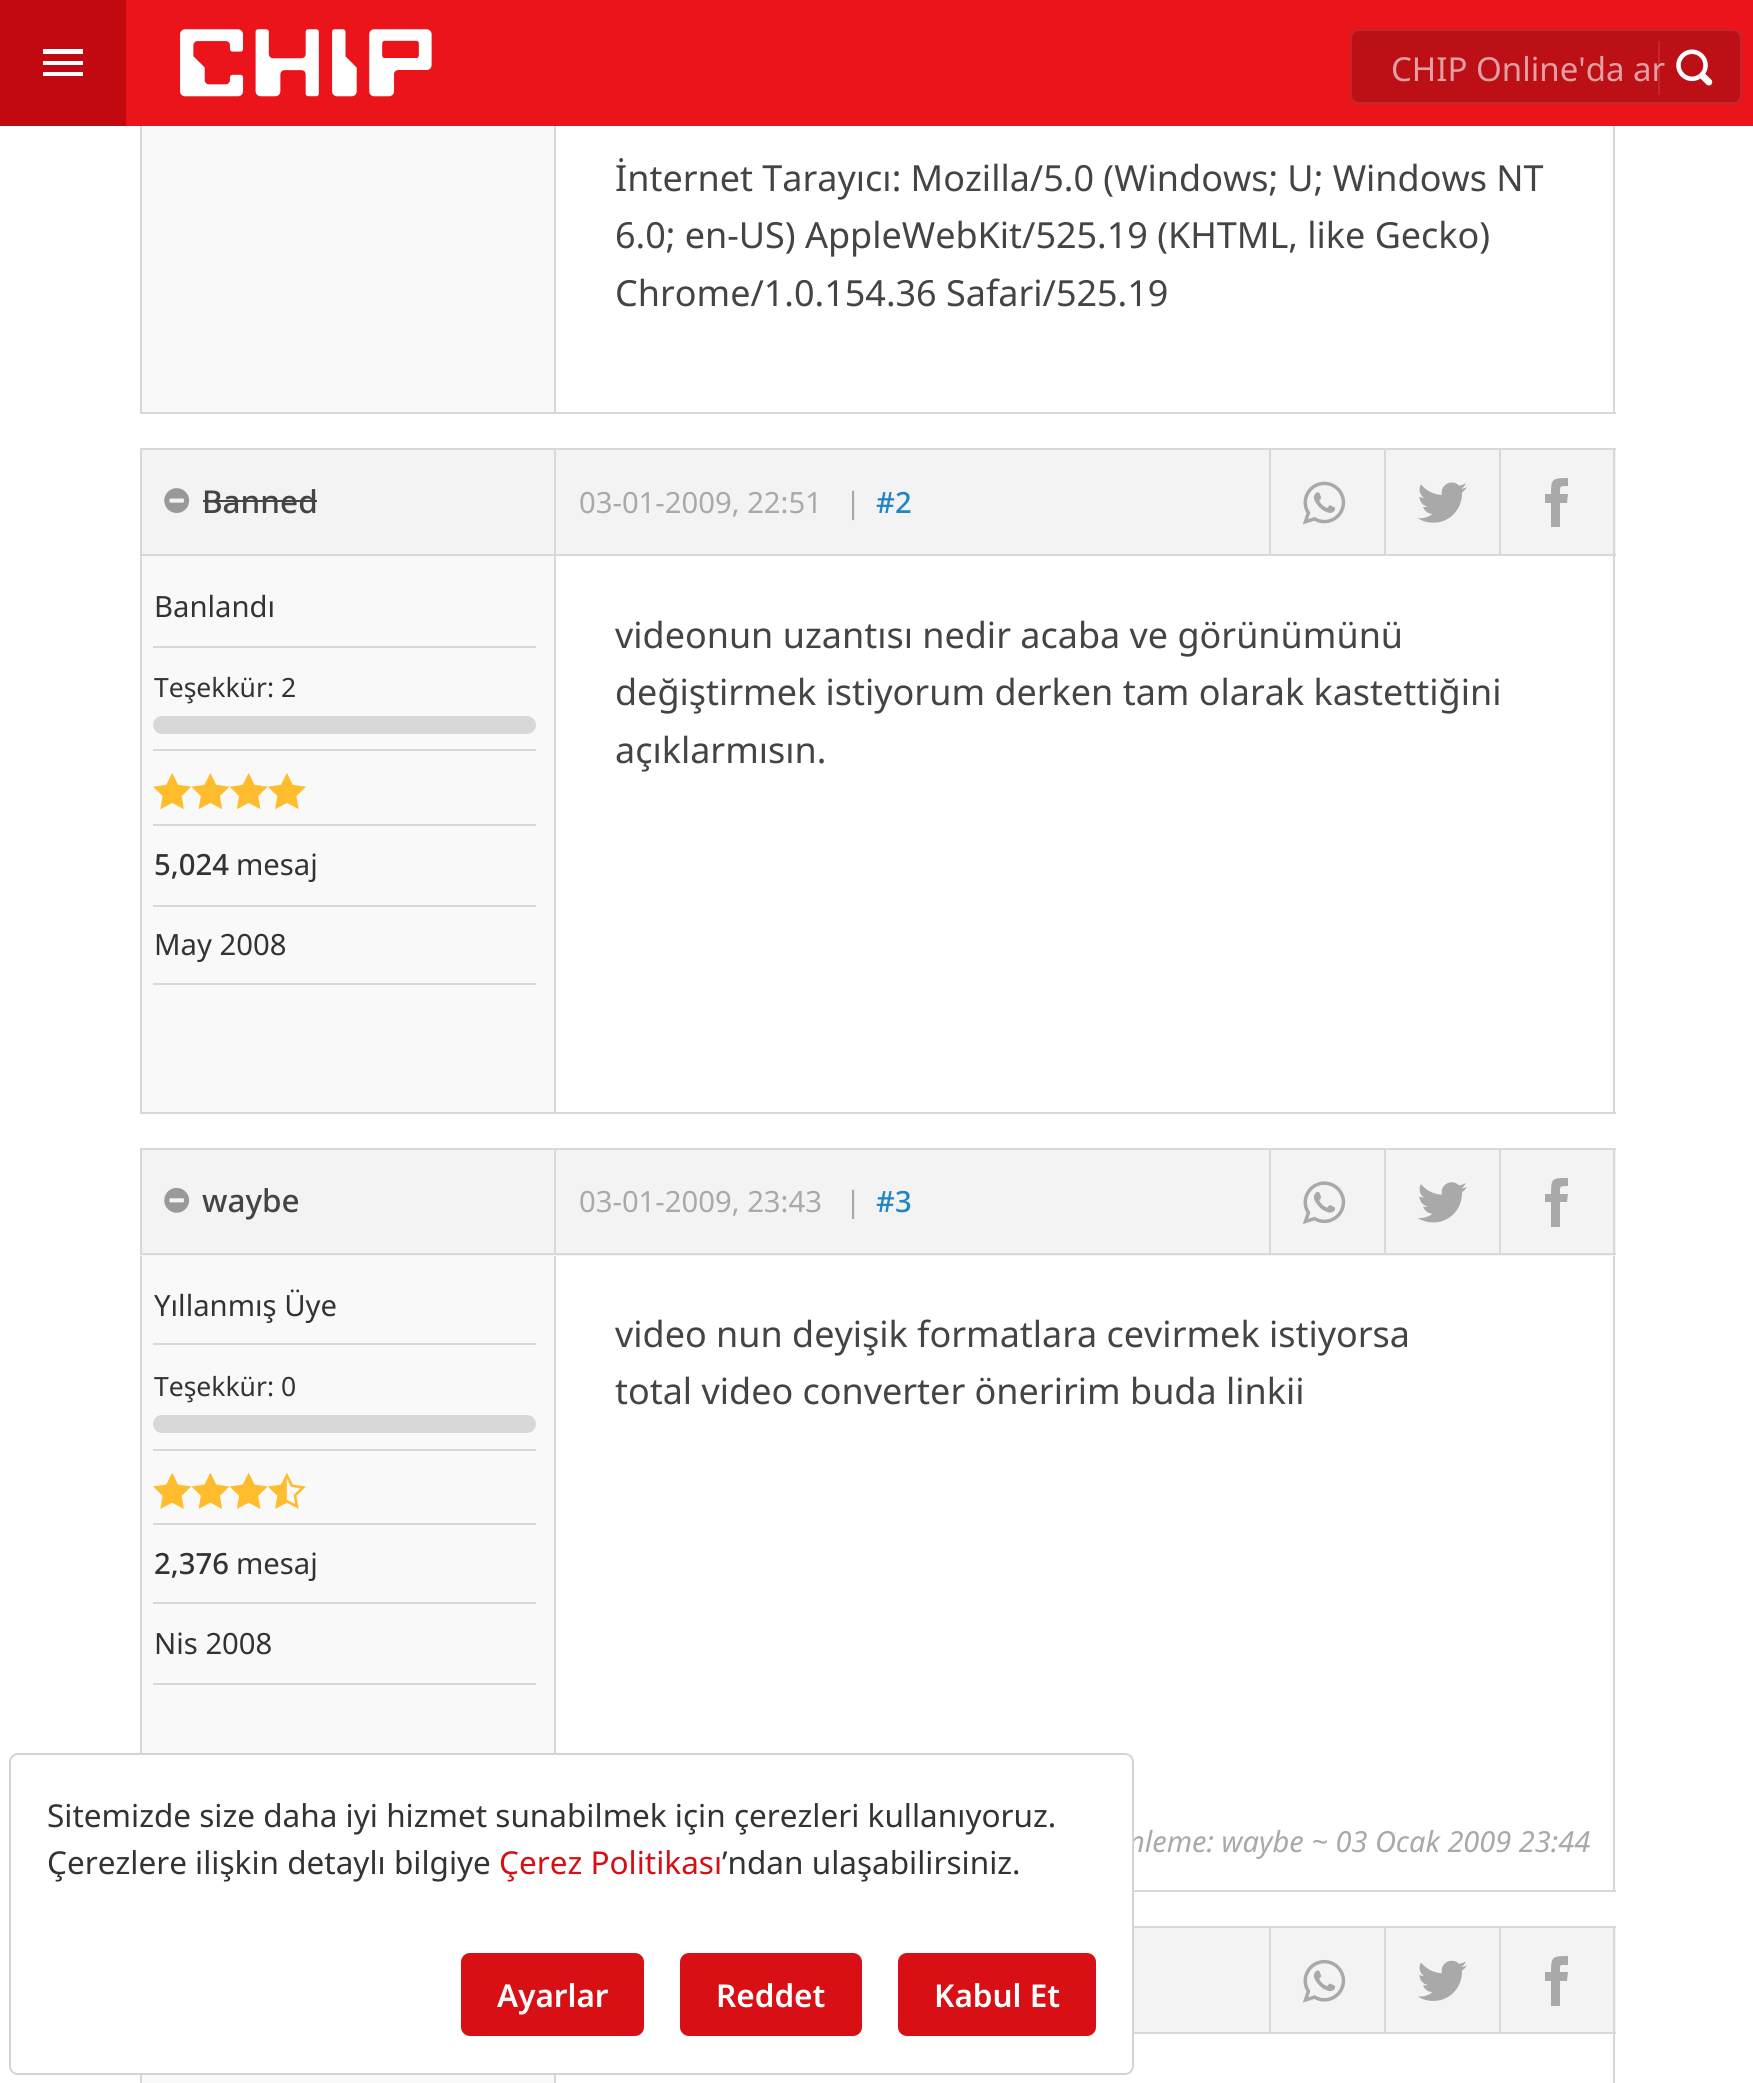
import math
import cairo


def use_color(cr, r, g, b):
  cr.set_source_rgb(r / 255, g / 255, b / 255)

def text(cr, x, y, s, family, size, color, bold=False, italic=False):
  cr.select_font_face(family, cairo.FONT_SLANT_ITALIC if italic else cairo.FONT_SLANT_NORMAL, cairo.FONT_WEIGHT_BOLD if bold else cairo.FONT_WEIGHT_NORMAL)
  cr.set_font_size(size)
  use_color(cr, *color)
  cr.move_to(x, y)
  cr.show_text(s)

def box(cr, x, y, w, h, *color):
  use_color(cr, *color)
  cr.rectangle(x, y, w, h)
  cr.fill()

def round_rect(cr, x, y, w, h, r):
  cr.new_sub_path()
  for i, (u, v) in enumerate([(x + w - r, y + h - r), (x + r, y + h - r), (x + r, y + r), (x + w - r, y + r)]):
    cr.arc(u, v, r, i * math.pi / 2, (i + 1) * math.pi / 2)
  cr.close_path()

def picture(cr, path, x, y, w, h):
  cr.save()
  cr.set_source_surface(cairo.ImageSurface.create_from_png(path), x, y)
  cr.rectangle(x, y, w, h)
  cr.fill()
  cr.restore()

def draw(cr):
  use_color(cr, 255, 255, 255)
  cr.paint()
  box(cr, 126, 0, 1627, 126, 235, 20, 27)
  box(cr, 0, 0, 126, 126, 193, 9, 15)
  use_color(cr, 255, 255, 255)
  cr.new_path()
  cr.move_to(43, 76)
  cr.line_to(83, 76)
  cr.line_to(83, 72)
  cr.line_to(43, 72)
  cr.close_path()
  cr.move_to(43, 65)
  cr.line_to(83, 65)
  cr.line_to(83, 61)
  cr.line_to(43, 61)
  cr.close_path()
  cr.move_to(43, 49)
  cr.line_to(43, 54)
  cr.line_to(83, 54)
  cr.line_to(83, 49)
  cr.close_path()
  cr.fill()
  picture(cr, "img_01.png", 180, 29, 252, 68)
  use_color(cr, 188, 16, 22)
  round_rect(cr, 1350, 29, 392, 75, 9)
  cr.fill()
  round_rect(cr, 1351, 30, 390, 73, 8)
  cr.set_source_rgba(1, 1, 1, 0.1)
  cr.stroke()
  cr.rectangle(1658, 41, 2, 54)
  cr.fill()
  picture(cr, "img_02.png", 1676, 49, 37, 37)
  box(cr, 140, 412, 1476, 2, 216, 216, 216)
  box(cr, 142, 126, 412, 286, 249, 249, 249)
  box(cr, 140, 126, 2, 286, 216, 216, 216)
  box(cr, 1613, 126, 2, 286, 216, 216, 216)
  box(cr, 554, 126, 2, 286, 216, 216, 216)
  box(cr, 142, 450, 1474, 104, 243, 243, 243)
  box(cr, 140, 448, 1476, 2, 216, 216, 216)
  box(cr, 140, 554, 1476, 2, 216, 216, 216)
  box(cr, 554, 450, 2, 104, 216, 216, 216)
  box(cr, 140, 450, 2, 104, 216, 216, 216)
  picture(cr, "img_03.png", 164, 488, 26, 25)
  box(cr, 203, 500, 114, 2, 68, 68, 68)
  box(cr, 1613, 450, 2, 104, 216, 216, 216)
  box(cr, 1269, 450, 2, 104, 216, 216, 216)
  picture(cr, "img_04.png", 1302, 481, 44, 44)
  box(cr, 1384, 450, 2, 104, 216, 216, 216)
  picture(cr, "img_05.png", 1417, 482, 50, 41)
  box(cr, 1499, 450, 2, 104, 216, 216, 216)
  use_color(cr, 169, 169, 169)
  cr.new_path()
  cr.move_to(1560, 527)
  cr.line_to(1551, 527)
  cr.line_to(1551, 503)
  cr.line_to(1545, 503)
  cr.line_to(1545, 494)
  cr.line_to(1551, 494)
  cr.curve_to(1551, 479, 1552, 478, 1568, 478)
  cr.line_to(1568, 486)
  cr.curve_to(1559, 486, 1560, 486, 1560, 494)
  cr.line_to(1568, 494)
  cr.line_to(1567, 503)
  cr.line_to(1560, 503)
  cr.close_path()
  cr.fill()
  box(cr, 140, 1112, 1476, 2, 216, 216, 216)
  box(cr, 142, 556, 412, 556, 249, 249, 249)
  box(cr, 140, 556, 2, 556, 216, 216, 216)
  box(cr, 153, 646, 383, 2, 216, 216, 216)
  box(cr, 153, 749, 383, 2, 216, 216, 216)
  round_rect(cr, 153, 716, 383, 18, 9)
  cr.fill()
  box(cr, 153, 824, 383, 2, 216, 216, 216)
  picture(cr, "img_06.png", 153, 773, 153, 37)
  box(cr, 153, 905, 383, 2, 216, 216, 216)
  box(cr, 153, 983, 383, 2, 216, 216, 216)
  box(cr, 1613, 556, 2, 556, 216, 216, 216)
  box(cr, 554, 556, 2, 556, 216, 216, 216)
  box(cr, 140, 1150, 1476, 106, 243, 243, 243)
  box(cr, 140, 1148, 1476, 2, 216, 216, 216)
  box(cr, 140, 1253, 1476, 2, 216, 216, 216)
  box(cr, 554, 1150, 2, 103, 216, 216, 216)
  box(cr, 140, 1150, 2, 103, 216, 216, 216)
  picture(cr, "img_07.png", 164, 1187, 26, 26)
  box(cr, 1613, 1150, 2, 103, 216, 216, 216)
  box(cr, 1269, 1150, 2, 103, 216, 216, 216)
  picture(cr, "img_08.png", 1302, 1181, 44, 43)
  box(cr, 1384, 1150, 2, 103, 216, 216, 216)
  picture(cr, "img_09.png", 1418, 1182, 49, 41)
  box(cr, 1499, 1150, 2, 103, 216, 216, 216)
  use_color(cr, 169, 169, 169)
  cr.new_path()
  cr.move_to(1560, 1227)
  cr.line_to(1551, 1227)
  cr.line_to(1551, 1202)
  cr.line_to(1545, 1202)
  cr.line_to(1545, 1194)
  cr.line_to(1551, 1194)
  cr.curve_to(1551, 1178, 1552, 1178, 1568, 1178)
  cr.line_to(1568, 1186)
  cr.curve_to(1559, 1186, 1560, 1186, 1560, 1194)
  cr.line_to(1568, 1194)
  cr.line_to(1567, 1202)
  cr.line_to(1560, 1202)
  cr.close_path()
  cr.fill()
  box(cr, 1134, 1890, 482, 2, 216, 216, 216)
  box(cr, 142, 1256, 412, 497, 249, 249, 249)
  box(cr, 140, 1256, 2, 497, 216, 216, 216)
  box(cr, 153, 1343, 383, 2, 216, 216, 216)
  box(cr, 153, 1449, 383, 2, 216, 216, 216)
  round_rect(cr, 153, 1415, 383, 18, 9)
  cr.fill()
  box(cr, 153, 1523, 383, 2, 216, 216, 216)
  picture(cr, "img_10.png", 153, 1472, 153, 37)
  box(cr, 153, 1602, 383, 2, 216, 216, 216)
  box(cr, 153, 1683, 383, 2, 216, 216, 216)
  box(cr, 1613, 1256, 2, 634, 216, 216, 216)
  box(cr, 554, 1256, 2, 497, 216, 216, 216)
  box(cr, 1134, 1928, 482, 104, 243, 243, 243)
  box(cr, 1134, 1926, 482, 2, 216, 216, 216)
  box(cr, 1134, 2032, 482, 2, 216, 216, 216)
  box(cr, 1613, 1928, 2, 104, 216, 216, 216)
  box(cr, 1269, 1928, 2, 104, 216, 216, 216)
  picture(cr, "img_11.png", 1302, 1959, 44, 44)
  box(cr, 1384, 1928, 2, 104, 216, 216, 216)
  picture(cr, "img_12.png", 1417, 1960, 50, 41)
  box(cr, 1499, 1928, 2, 104, 216, 216, 216)
  use_color(cr, 169, 169, 169)
  cr.new_path()
  cr.move_to(1560, 2006)
  cr.line_to(1551, 2006)
  cr.line_to(1551, 1981)
  cr.line_to(1545, 1981)
  cr.line_to(1545, 1972)
  cr.line_to(1551, 1972)
  cr.curve_to(1551, 1957, 1552, 1956, 1568, 1956)
  cr.line_to(1568, 1965)
  cr.curve_to(1559, 1965, 1560, 1964, 1560, 1972)
  cr.line_to(1568, 1972)
  cr.line_to(1567, 1981)
  cr.line_to(1560, 1981)
  cr.close_path()
  cr.fill()
  box(cr, 142, 2075, 412, 8, 249, 249, 249)
  box(cr, 140, 2075, 2, 8, 216, 216, 216)
  box(cr, 1613, 2034, 2, 49, 216, 216, 216)
  box(cr, 554, 2075, 2, 8, 216, 216, 216)
  text(cr, 1391, 81, "CHIP Online'da ar", "Noto Sans", 33, (228, 159, 162))
  text(cr, 615, 191, "İnternet Tarayıcı: Mozilla/5.0 (Windows; U; Windows NT", "Noto Sans", 35.95, (68, 68, 68))
  text(cr, 615, 248, "6.0; en-US) AppleWebKit/525.19 (KHTML, like Gecko)", "Noto Sans", 35.95, (68, 68, 68))
  text(cr, 615, 306, "Chrome/1.0.154.36 Safari/525.19", "Noto Sans", 35.95, (68, 68, 68))
  text(cr, 202, 513, "Banned", "Noto Sans Medium", 31.5, (68, 68, 68))
  text(cr, 579, 513, "03-01-2009, 22:51", "Noto Sans", 29.25, (169, 169, 169))
  text(cr, 845, 513, "|", "Noto Sans", 29.25, (169, 169, 169))
  text(cr, 876, 513, "#2", "Noto Sans Medium", 29.25, (31, 133, 197))
  text(cr, 154, 617, "Banlandı", "Noto Sans", 29.25, (51, 51, 51))
  text(cr, 154, 697, "Teşekkür: 2", "Noto Sans", 26.5, (51, 51, 51))
  text(cr, 154, 875, "5,024", "Noto Sans Medium", 29.25, (51, 51, 51))
  text(cr, 236, 875, "mesaj", "Noto Sans", 29.25, (51, 51, 51))
  text(cr, 154, 955, "May 2008", "Noto Sans", 29.25, (51, 51, 51))
  text(cr, 615, 648, "videonun uzantısı nedir acaba ve görünümünü", "Noto Sans", 35.95, (68, 68, 68))
  text(cr, 615, 705, "değiştirmek istiyorum derken tam olarak kastettiğini", "Noto Sans", 35.95, (68, 68, 68))
  text(cr, 615, 763, "açıklarmısın.", "Noto Sans", 35.95, (68, 68, 68))
  text(cr, 202, 1212, "waybe", "Noto Sans Medium", 31.5, (68, 68, 68))
  text(cr, 579, 1212, "03-01-2009, 23:43", "Noto Sans", 29.25, (169, 169, 169))
  text(cr, 845, 1212, "|", "Noto Sans", 29.25, (169, 169, 169))
  text(cr, 876, 1212, "#3", "Noto Sans Medium", 29.25, (31, 133, 197))
  text(cr, 154, 1316, "Yıllanmış Üye", "Noto Sans", 29.25, (51, 51, 51))
  text(cr, 154, 1396, "Teşekkür: 0", "Noto Sans", 26.5, (51, 51, 51))
  text(cr, 154, 1574, "2,376", "Noto Sans Medium", 29.25, (51, 51, 51))
  text(cr, 236, 1574, "mesaj", "Noto Sans", 29.25, (51, 51, 51))
  text(cr, 154, 1654, "Nis 2008", "Noto Sans", 29.25, (51, 51, 51))
  text(cr, 615, 1347, "video nun deyişik formatlara cevirmek istiyorsa", "Noto Sans", 35.95, (68, 68, 68))
  text(cr, 615, 1404, "total video converter öneririm buda linkii", "Noto Sans", 35.95, (68, 68, 68))
  text(cr, 1128, 1852, "nleme: waybe ~ 03 Ocak 2009 23:44", "Noto Sans", 29, (169, 169, 169), italic=True)
  use_color(cr, 255, 255, 255)
  round_rect(cr, 10, 1754, 1123, 320, 8)
  cr.fill_preserve()
  use_color(cr, 209, 213, 219)
  cr.stroke()
  text(cr, 47, 1827, "Sitemizde size daha iyi hizmet sunabilmek için çerezleri kullanıyoruz.", "Noto Sans", 31.5, (51, 51, 51))
  text(cr, 47, 1874, "Çerezlere ilişkin detaylı bilgiye", "Noto Sans", 31.5, (51, 51, 51))
  text(cr, 499, 1874, "Çerez Politikası", "Noto Sans", 31.5, (215, 15, 18))
  text(cr, 722, 1874, "’ndan ulaşabilirsiniz.", "Noto Sans", 31.5, (51, 51, 51))
  use_color(cr, 216, 15, 20)
  round_rect(cr, 461, 1953, 183, 83, 9)
  cr.fill()
  text(cr, 497, 2007, "Ayarlar", "Noto Sans SemiBold", 31.5, (255, 255, 255))
  use_color(cr, 216, 15, 20)
  round_rect(cr, 680, 1953, 182, 83, 9)
  cr.fill()
  text(cr, 716, 2007, "Reddet", "Noto Sans SemiBold", 31.5, (255, 255, 255))
  use_color(cr, 216, 15, 20)
  round_rect(cr, 898, 1953, 198, 83, 9)
  cr.fill()
  text(cr, 934, 2007, "Kabul Et", "Noto Sans SemiBold", 31.5, (255, 255, 255))


surface = cairo.ImageSurface(cairo.FORMAT_RGB24, 1753, 2083)
cr = cairo.Context(surface)
options = cairo.FontOptions()
options.set_hint_metrics(cairo.HINT_METRICS_OFF)
options.set_hint_style(cairo.HINT_STYLE_NONE)
cr.set_font_options(options)
cr.set_miter_limit(4)
draw(cr)
surface.write_to_png("out.png")
